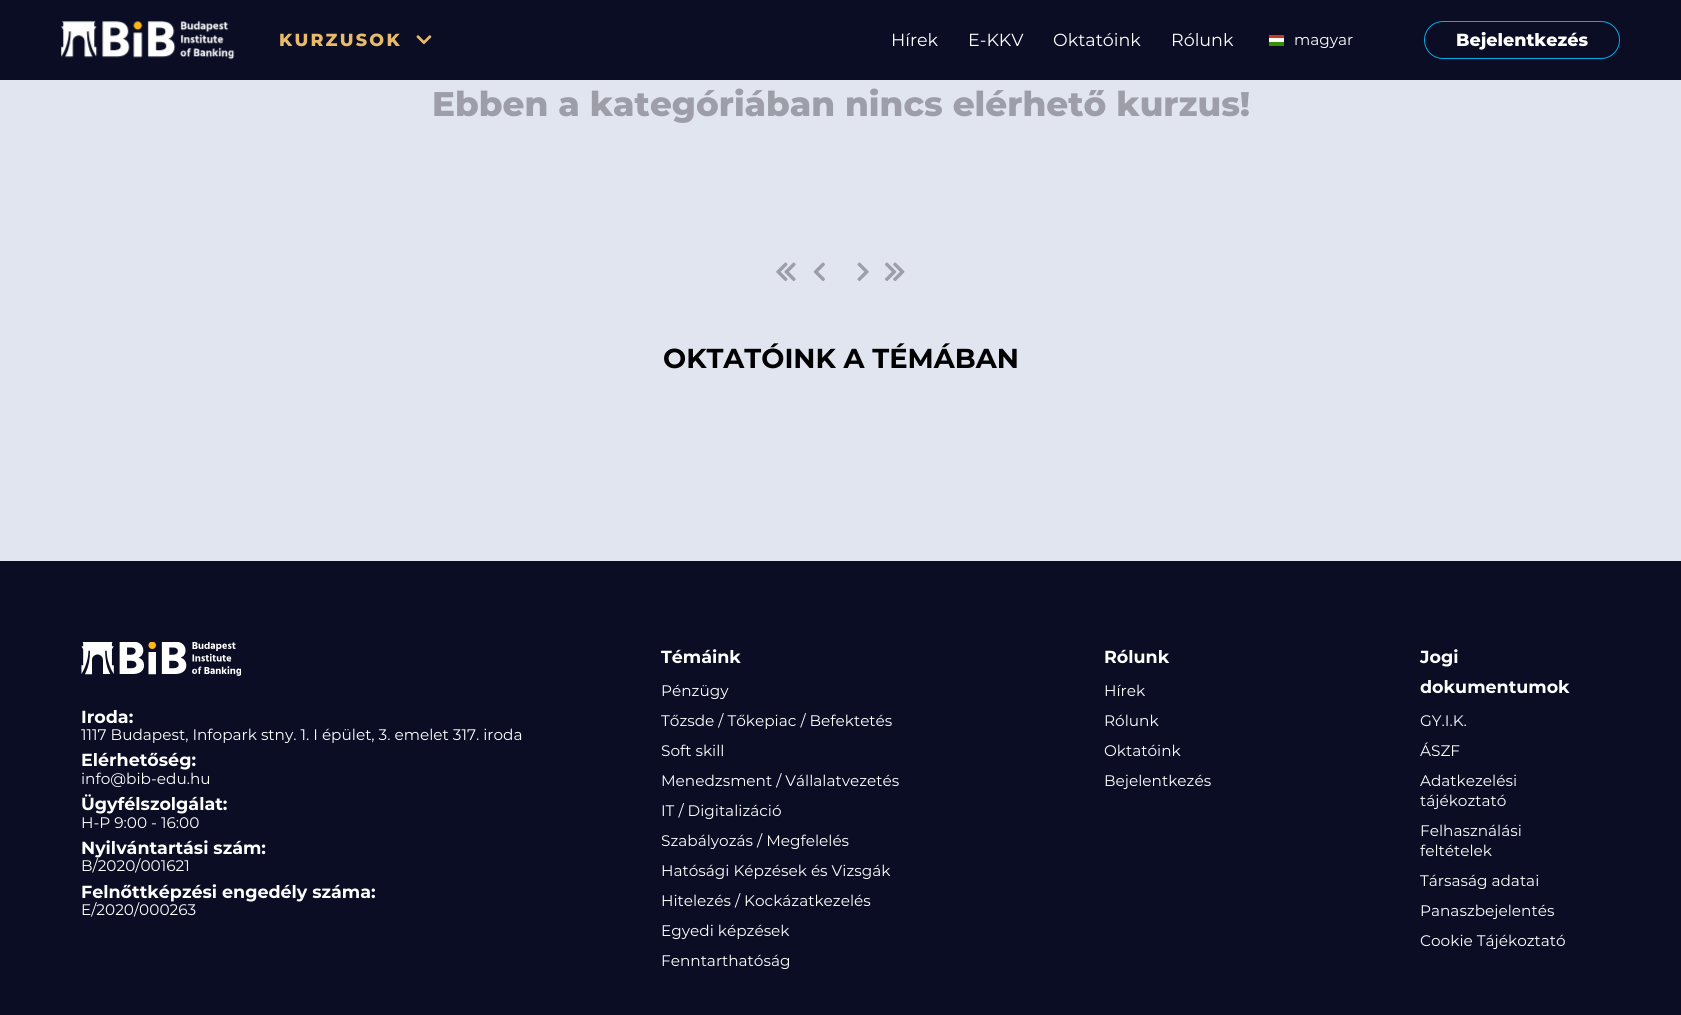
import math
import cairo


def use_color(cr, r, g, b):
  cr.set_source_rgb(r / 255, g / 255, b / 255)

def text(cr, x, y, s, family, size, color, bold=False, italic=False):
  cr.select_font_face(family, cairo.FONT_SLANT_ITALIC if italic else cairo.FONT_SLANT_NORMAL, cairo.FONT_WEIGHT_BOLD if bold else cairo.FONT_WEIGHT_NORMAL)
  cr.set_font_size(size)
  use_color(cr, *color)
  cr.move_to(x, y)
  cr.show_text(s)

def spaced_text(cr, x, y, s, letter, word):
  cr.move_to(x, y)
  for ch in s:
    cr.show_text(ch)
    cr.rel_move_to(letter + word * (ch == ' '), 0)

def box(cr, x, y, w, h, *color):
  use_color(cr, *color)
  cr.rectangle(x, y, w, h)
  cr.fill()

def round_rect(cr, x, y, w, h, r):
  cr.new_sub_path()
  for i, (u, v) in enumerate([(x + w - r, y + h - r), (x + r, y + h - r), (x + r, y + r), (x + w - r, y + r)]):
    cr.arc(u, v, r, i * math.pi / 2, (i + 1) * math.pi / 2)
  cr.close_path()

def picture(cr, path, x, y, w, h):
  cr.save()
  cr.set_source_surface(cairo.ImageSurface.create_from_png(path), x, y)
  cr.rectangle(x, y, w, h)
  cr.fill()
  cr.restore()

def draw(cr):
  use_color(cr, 224, 229, 240)
  cr.paint()
  box(cr, 0, 0, 1681, 80, 10, 13, 36)
  picture(cr, "img_01.png", 61, 21, 174, 39)
  picture(cr, "img_02.png", 416, 35, 16, 10)
  box(cr, 1269, 38, 15, 4, 255, 255, 255)
  box(cr, 1269, 42, 15, 4, 56, 141, 0)
  box(cr, 1269, 35, 15, 3, 212, 53, 22)
  round_rect(cr, 1424.5, 21.5, 195, 37, 18.5)
  use_color(cr, 0, 171, 231)
  cr.set_line_width(1)
  cr.stroke()
  picture(cr, "img_03.png", 776, 262, 20, 20)
  picture(cr, "img_04.png", 813, 262, 12, 19)
  picture(cr, "img_05.png", 857, 262, 12, 20)
  picture(cr, "img_06.png", 885, 262, 20, 19)
  box(cr, 0, 561, 1681, 454, 10, 13, 36)
  picture(cr, "img_07.png", 81, 642, 160, 34)
  cr.select_font_face("Montserrat ExtraBold")
  cr.set_font_size(17.5)
  use_color(cr, 234, 186, 107)
  spaced_text(cr, 279, 46, "KURZUSOK", 2.25, 0)
  text(cr, 891, 46, "Hírek", "Montserrat", 17.5, (255, 255, 255))
  text(cr, 968, 46, "E-KKV", "Montserrat", 17.5, (255, 255, 255))
  text(cr, 1053, 46, "Oktatóink", "Montserrat", 17.5, (255, 255, 255))
  text(cr, 1171, 46, "Rólunk", "Montserrat", 17.5, (255, 255, 255))
  text(cr, 1294, 45, "magyar", "Montserrat", 15.3, (255, 255, 255))
  text(cr, 1456, 46, "Bejelentkezés", "Montserrat ExtraBold", 17.5, (255, 255, 255))
  text(cr, 432, 116, "Ebben a kategóriában nincs elérhető kurzus!", "Montserrat ExtraBold", 34.2, (157, 158, 167))
  text(cr, 663, 368, "OKTATÓINK A TÉMÁBAN", "Montserrat", 27.4, (0, 0, 0), bold=True)
  text(cr, 81, 723, "Iroda:", "Montserrat", 17.5, (255, 255, 255), bold=True)
  text(cr, 81, 740, "1117 Budapest, Infopark stny. 1. I épület, 3. emelet 317. iroda", "Montserrat", 15.3, (255, 255, 255))
  text(cr, 81, 766, "Elérhetőség:", "Montserrat", 17.5, (255, 255, 255), bold=True)
  text(cr, 81, 784, "info@bib-edu.hu", "Montserrat", 15.3, (255, 255, 255))
  text(cr, 81, 810, "Ügyfélszolgálat:", "Montserrat", 17.5, (255, 255, 255), bold=True)
  text(cr, 81, 828, "H-P 9:00 - 16:00", "Montserrat", 15.3, (255, 255, 255))
  text(cr, 81, 854, "Nyilvántartási szám:", "Montserrat", 17.5, (255, 255, 255), bold=True)
  text(cr, 81, 871, "B/2020/001621", "Montserrat", 15.3, (255, 255, 255))
  text(cr, 81, 898, "Felnőttképzési engedély száma:", "Montserrat", 17.5, (255, 255, 255), bold=True)
  text(cr, 81, 915, "E/2020/000263", "Montserrat", 15.3, (255, 255, 255))
  text(cr, 661, 663, "Témáink", "Montserrat", 17.5, (255, 255, 255), bold=True)
  text(cr, 661, 696, "Pénzügy", "Montserrat", 15.3, (255, 255, 255))
  text(cr, 661, 726, "Tőzsde / Tőkepiac / Befektetés", "Montserrat", 15.3, (255, 255, 255))
  text(cr, 661, 756, "Soft skill", "Montserrat", 15.3, (255, 255, 255))
  text(cr, 661, 786, "Menedzsment / Vállalatvezetés", "Montserrat", 15.3, (255, 255, 255))
  text(cr, 661, 816, "IT / Digitalizáció", "Montserrat", 15.3, (255, 255, 255))
  text(cr, 661, 846, "Szabályozás / Megfelelés", "Montserrat", 15.3, (255, 255, 255))
  text(cr, 661, 876, "Hatósági Képzések és Vizsgák", "Montserrat", 15.3, (255, 255, 255))
  text(cr, 661, 906, "Hitelezés / Kockázatkezelés", "Montserrat", 15.3, (255, 255, 255))
  text(cr, 661, 936, "Egyedi képzések", "Montserrat", 15.3, (255, 255, 255))
  text(cr, 661, 966, "Fenntarthatóság", "Montserrat", 15.3, (255, 255, 255))
  text(cr, 1104, 663, "Rólunk", "Montserrat", 17.5, (255, 255, 255), bold=True)
  text(cr, 1104, 696, "Hírek", "Montserrat", 15.3, (255, 255, 255))
  text(cr, 1104, 726, "Rólunk", "Montserrat", 15.3, (255, 255, 255))
  text(cr, 1104, 756, "Oktatóink", "Montserrat", 15.3, (255, 255, 255))
  text(cr, 1104, 786, "Bejelentkezés", "Montserrat", 15.3, (255, 255, 255))
  text(cr, 1420, 663, "Jogi", "Montserrat", 17.5, (255, 255, 255), bold=True)
  text(cr, 1420, 693, "dokumentumok", "Montserrat", 17.5, (255, 255, 255), bold=True)
  text(cr, 1420, 726, "GY.I.K.", "Montserrat", 15.3, (255, 255, 255))
  text(cr, 1420, 756, "ÁSZF", "Montserrat", 15.3, (255, 255, 255))
  text(cr, 1420, 786, "Adatkezelési", "Montserrat", 15.3, (255, 255, 255))
  text(cr, 1420, 806, "tájékoztató", "Montserrat", 15.3, (255, 255, 255))
  text(cr, 1420, 836, "Felhasználási", "Montserrat", 15.3, (255, 255, 255))
  text(cr, 1420, 856, "feltételek", "Montserrat", 15.3, (255, 255, 255))
  text(cr, 1420, 886, "Társaság adatai", "Montserrat", 15.3, (255, 255, 255))
  text(cr, 1420, 916, "Panaszbejelentés", "Montserrat", 15.3, (255, 255, 255))
  text(cr, 1420, 946, "Cookie Tájékoztató", "Montserrat", 15.3, (255, 255, 255))


surface = cairo.ImageSurface(cairo.FORMAT_RGB24, 1681, 1015)
cr = cairo.Context(surface)
options = cairo.FontOptions()
options.set_hint_metrics(cairo.HINT_METRICS_OFF)
options.set_hint_style(cairo.HINT_STYLE_NONE)
cr.set_font_options(options)
cr.set_miter_limit(4)
draw(cr)
surface.write_to_png("out.png")
